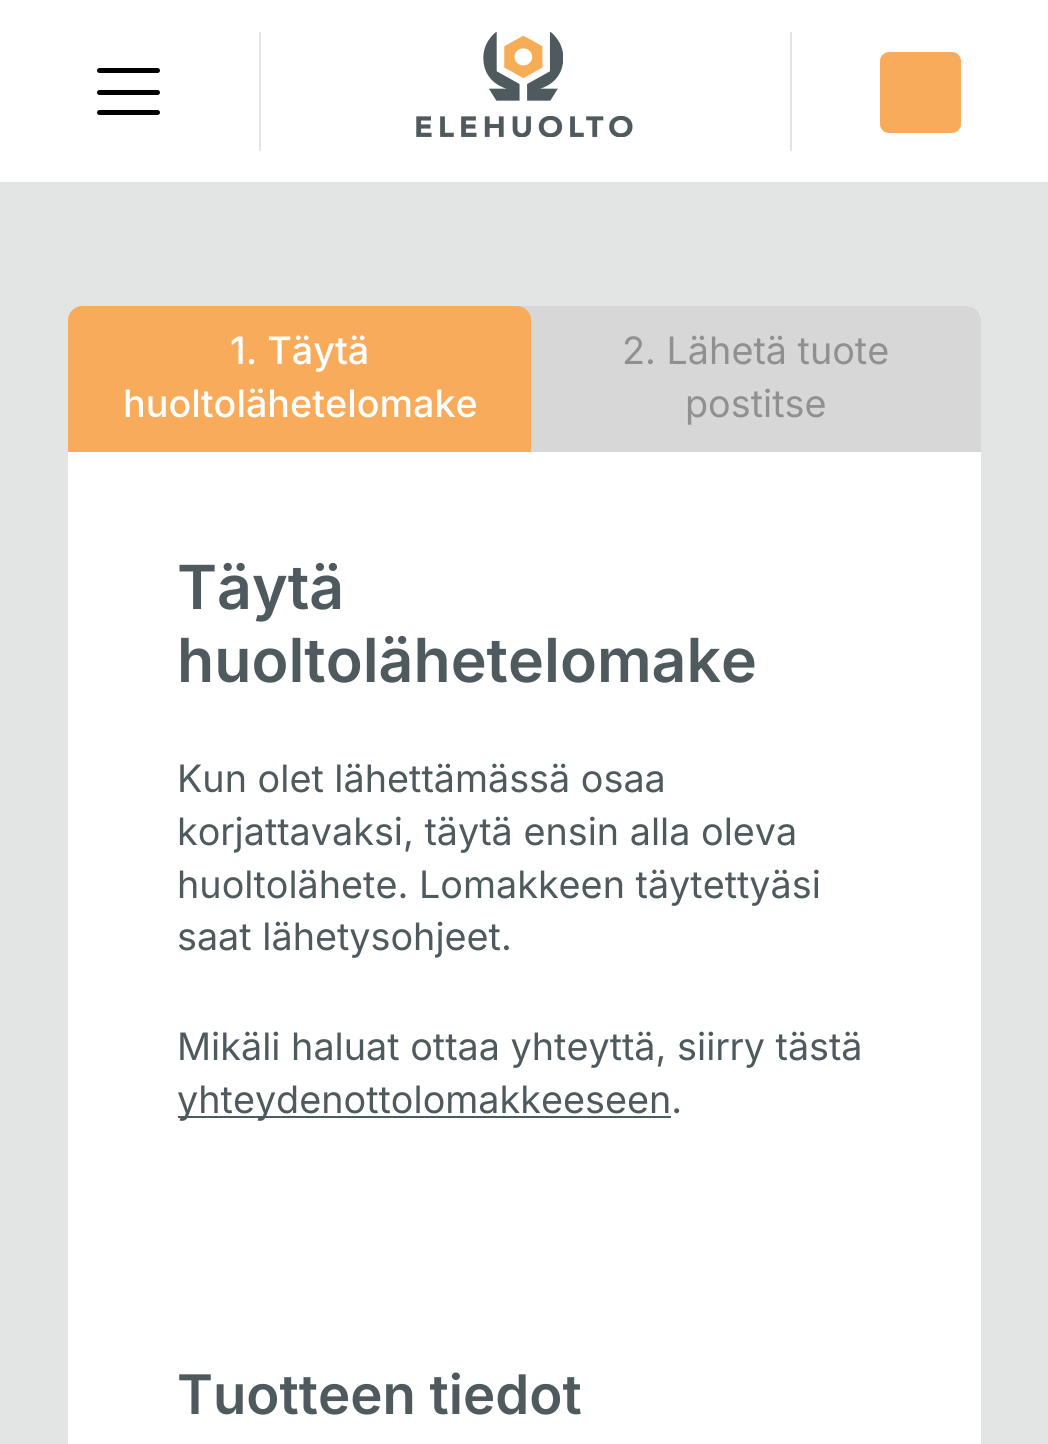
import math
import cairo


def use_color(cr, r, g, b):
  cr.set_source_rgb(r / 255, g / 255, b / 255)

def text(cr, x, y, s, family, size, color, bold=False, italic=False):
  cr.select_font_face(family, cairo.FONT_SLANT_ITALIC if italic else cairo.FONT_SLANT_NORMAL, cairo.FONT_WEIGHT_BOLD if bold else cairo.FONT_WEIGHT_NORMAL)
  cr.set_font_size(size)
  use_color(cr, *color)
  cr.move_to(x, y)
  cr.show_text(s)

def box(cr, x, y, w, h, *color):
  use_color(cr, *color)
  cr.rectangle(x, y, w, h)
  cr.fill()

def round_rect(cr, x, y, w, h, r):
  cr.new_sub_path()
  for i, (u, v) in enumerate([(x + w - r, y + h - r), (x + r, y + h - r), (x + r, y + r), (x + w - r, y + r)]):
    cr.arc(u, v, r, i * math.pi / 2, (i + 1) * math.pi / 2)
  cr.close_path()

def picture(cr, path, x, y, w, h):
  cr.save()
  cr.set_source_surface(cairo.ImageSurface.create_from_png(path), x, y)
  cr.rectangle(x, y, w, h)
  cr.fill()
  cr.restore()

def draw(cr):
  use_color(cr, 227, 229, 229)
  cr.paint()
  box(cr, 0, 0, 1048, 182, 255, 255, 255)
  use_color(cr, 0, 0, 0)
  round_rect(cr, 97, 68, 63, 5, 2.5)
  cr.fill()
  round_rect(cr, 97, 90, 63, 5, 2.5)
  cr.fill()
  round_rect(cr, 97, 110, 63, 5, 2.5)
  cr.fill()
  box(cr, 790, 32, 2, 119, 227, 229, 229)
  box(cr, 259, 32, 2, 119, 227, 229, 229)
  picture(cr, "img_01.png", 416, 32, 217, 105)
  use_color(cr, 248, 171, 90)
  round_rect(cr, 880, 52, 81, 81, 9)
  cr.fill()
  use_color(cr, 255, 255, 255)
  round_rect(cr, 68, 306, 913, 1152, 14)
  cr.fill()
  use_color(cr, 215, 215, 215)
  cr.new_path()
  cr.move_to(82, 306)
  cr.line_to(967, 306)
  cr.curve_to(974.5, 306, 981, 312.5, 981, 320)
  cr.line_to(981, 452)
  cr.line_to(68, 452)
  cr.line_to(68, 320)
  cr.curve_to(68, 312.5, 74.5, 306, 82, 306)
  cr.close_path()
  cr.fill()
  use_color(cr, 248, 171, 90)
  cr.new_path()
  cr.move_to(82, 306)
  cr.line_to(517, 306)
  cr.curve_to(524.5, 306, 531, 312.5, 531, 320)
  cr.line_to(531, 452)
  cr.line_to(68, 452)
  cr.line_to(68, 320)
  cr.curve_to(68, 312.5, 74.5, 306, 82, 306)
  cr.close_path()
  cr.fill()
  box(cr, 178, 1116, 493, 2, 78, 90, 93)
  text(cr, 230, 364, "1. Täytä", "Inter Medium", 37.75, (255, 255, 255))
  text(cr, 123, 417, "huoltolähetelomake", "Inter Medium", 37.75, (255, 255, 255))
  text(cr, 622, 364, "2. Lähetä tuote", "Inter", 37.75, (144, 144, 144))
  text(cr, 685, 417, "postitse", "Inter", 37.75, (144, 144, 144))
  text(cr, 177, 609, "Täytä", "Inter SemiBold", 60.75, (78, 90, 93))
  text(cr, 177, 682, "huoltolähetelomake", "Inter SemiBold", 60.75, (78, 90, 93))
  text(cr, 177, 792, "Kun olet lähettämässä osaa", "Inter", 37.75, (78, 90, 93))
  text(cr, 177, 845, "korjattavaksi, täytä ensin alla oleva", "Inter", 37.75, (78, 90, 93))
  text(cr, 177, 898, "huoltolähete. Lomakkeen täytettyäsi", "Inter", 37.75, (78, 90, 93))
  text(cr, 177, 950, "saat lähetysohjeet.", "Inter", 37.75, (78, 90, 93))
  text(cr, 177, 1060, "Mikäli haluat ottaa yhteyttä, siirry tästä", "Inter", 37.75, (78, 90, 93))
  text(cr, 177, 1113, "yhteydenottolomakkeeseen.", "Inter", 37.75, (78, 90, 93))
  text(cr, 177, 1414, "Tuotteen tiedot", "Inter SemiBold", 54.5, (78, 90, 93))


surface = cairo.ImageSurface(cairo.FORMAT_RGB24, 1048, 1444)
cr = cairo.Context(surface)
options = cairo.FontOptions()
options.set_hint_metrics(cairo.HINT_METRICS_OFF)
options.set_hint_style(cairo.HINT_STYLE_NONE)
cr.set_font_options(options)
cr.set_miter_limit(4)
draw(cr)
surface.write_to_png("out.png")
